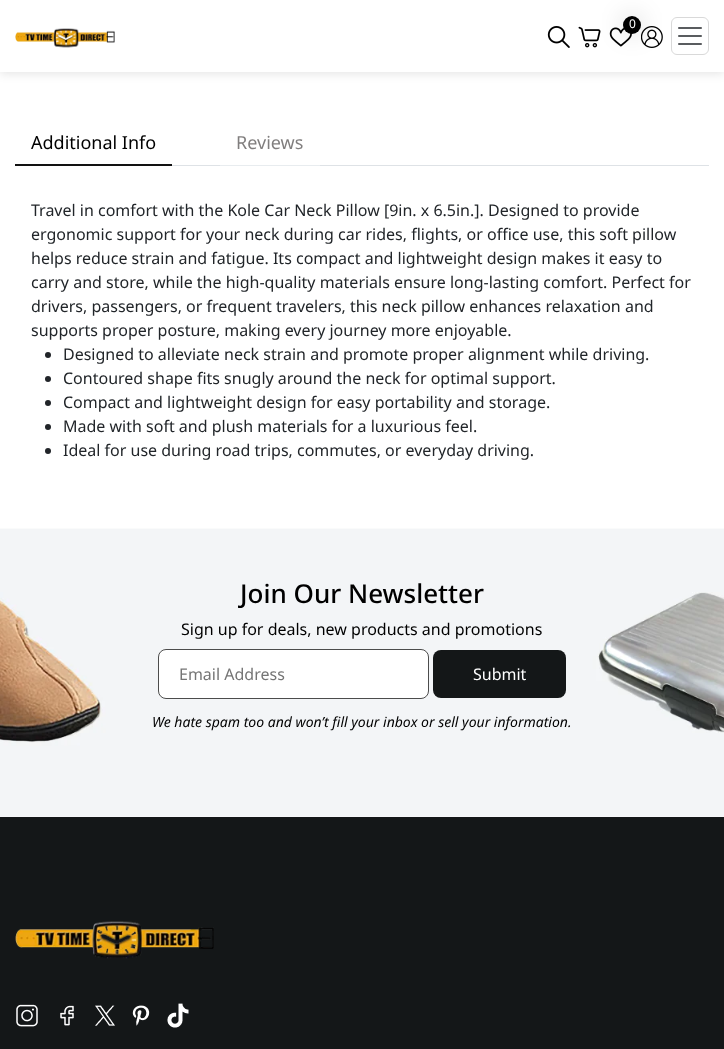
(async () => {
    const canvas = document.querySelector("canvas");
    canvas.width = 724;
    canvas.height = 1049;
    const context = canvas.getContext("2d");
    context.miterLimit = 4;
    context.fontKerning = "normal";
    function write(s, x, y, font, color) {
        context.font = font;
        context.fillStyle = color;
        context.fillText(s, x, y);
    }
    function block(x, y, w, h, color) {
        context.fillStyle = color;
        context.fillRect(x, y, w, h);
    }
    function card(x, y, w, h, r, color) {
        context.fillStyle = color;
        context.beginPath();
        context.roundRect(x, y, w, h, r);
        context.fill();
    }
    async function photo(src, x, y, w, h) {
        const img = new Image();
        img.src = src;
        await img.decode();
        context.drawImage(img, x, y, w, h);
    }

    block(0, 0, 724, 1049, "rgb(255, 255, 255)");
    context.fillStyle = "rgba(0, 0, 0, 0.1)";
    context.filter = "blur(5px)";
    context.beginPath();
    context.rect(0, 2, 724, 72);
    context.fill();
    context.filter = "none";
    block(0, 0, 724, 72, "rgb(255, 255, 255)");
    await photo("media/1.png", 609, 27, 23, 20);
    context.beginPath();
    context.roundRect(671.5, 17.5, 37, 37, 5.5);
    context.strokeStyle = "rgb(217, 217, 217)";
    context.stroke();
    await photo("media/2.png", 678, 27, 24, 18);
    await photo("media/4.png", 578, 26, 23, 22);
    await photo("media/5.png", 641, 26, 22, 22);
    context.fillStyle = "rgba(0, 0, 0, 0.2)";
    context.filter = "blur(12.5px)";
    context.beginPath();
    context.roundRect(623, 16, 18, 18, 9);
    context.fill();
    context.filter = "none";
    context.fillStyle = "rgb(0, 0, 0)";
    context.beginPath();
    context.arc(632, 25, 9, 0, Math.PI * 2);
    context.fill();
    write("0", 629, 28, "12px Noto Sans", "rgb(255, 255, 255)");
    await photo("media/3.png", 547, 26, 23, 22);
    await photo("media/6.png", 15, 28, 100, 20);
    block(172, 165, 537, 1, "rgb(222, 226, 230)");
    block(15, 164, 157, 2, "rgb(18, 18, 18)");
    write("Additional Info", 31, 149, "18px Noto Sans", "rgb(0, 0, 0)");
    block(220, 165, 100, 1, "rgb(232, 236, 239)");
    write("Reviews", 236, 149, "18px Noto Sans", "rgb(128, 126, 126)");
    write("Travel in comfort with the Kole Car Neck Pillow [9in. x 6.5in.]. Designed to provide", 31, 216, "16px Noto Sans", "rgb(33, 37, 41)");
    write("ergonomic support for your neck during car rides, flights, or office use, this soft pillow", 31, 240, "16px Noto Sans", "rgb(33, 37, 41)");
    write("helps reduce strain and fatigue. Its compact and lightweight design makes it easy to", 31, 264, "16px Noto Sans", "rgb(33, 37, 41)");
    write("carry and store, while the high-quality materials ensure long-lasting comfort. Perfect for", 31, 288, "16px Noto Sans", "rgb(33, 37, 41)");
    write("drivers, passengers, or frequent travelers, this neck pillow enhances relaxation and", 31, 312, "16px Noto Sans", "rgb(33, 37, 41)");
    write("supports proper posture, making every journey more enjoyable.", 31, 336, "16px Noto Sans", "rgb(33, 37, 41)");
    context.beginPath();
    context.arc(48, 355, 3, 0, Math.PI * 2);
    context.fill();
    write("Designed to alleviate neck strain and promote proper alignment while driving.", 63, 360, "16px Noto Sans", "rgb(33, 37, 41)");
    context.beginPath();
    context.arc(48, 379, 3, 0, Math.PI * 2);
    context.fill();
    write("Contoured shape fits snugly around the neck for optimal support.", 63, 384, "16px Noto Sans", "rgb(33, 37, 41)");
    context.beginPath();
    context.arc(48, 403, 3, 0, Math.PI * 2);
    context.fill();
    write("Compact and lightweight design for easy portability and storage.", 63, 408, "16px Noto Sans", "rgb(33, 37, 41)");
    context.beginPath();
    context.arc(48, 427, 3, 0, Math.PI * 2);
    context.fill();
    write("Made with soft and plush materials for a luxurious feel.", 63, 432, "16px Noto Sans", "rgb(33, 37, 41)");
    context.beginPath();
    context.arc(48, 451, 3, 0, Math.PI * 2);
    context.fill();
    write("Ideal for use during road trips, commutes, or everyday driving.", 63, 456, "16px Noto Sans", "rgb(33, 37, 41)");
    await photo("media/7.png", 0, 528, 724, 289);
    write("Join Our Newsletter", 240, 603, "500 26px Noto Sans", "rgb(0, 0, 0)");
    write("Sign up for deals, new products and promotions", 181, 635, "16px Noto Sans", "rgb(0, 0, 0)");
    card(158, 649, 271, 50, 8, "rgb(255, 255, 255)");
    context.beginPath();
    context.roundRect(158.5, 649.5, 270, 49, 7.5);
    context.strokeStyle = "rgba(0, 0, 0, 0.7)";
    context.stroke();
    write("Email Address", 179, 680, "16px Noto Sans", "rgb(117, 117, 117)");
    card(433, 650, 133, 48, 8, "rgb(20, 23, 24)");
    write("Submit", 473, 680, "16px Noto Sans", "rgb(255, 255, 255)");
    write("We hate spam too and won’t fill your inbox or sell your information.", 152, 727, "italic 14px Noto Sans", "rgb(0, 0, 0)");
    block(0, 817, 724, 232, "rgb(20, 23, 24)");
    await photo("media/8.png", 15, 921, 199, 38);
    await photo("media/9.png", 16, 1004, 22, 23);
    await photo("media/10.png", 60, 1005, 14, 21);
    await photo("media/11.png", 95, 1005, 20, 21);
    await photo("media/12.png", 132, 1005, 18, 21);
    await photo("media/13.png", 167, 1003, 22, 25);
})();
